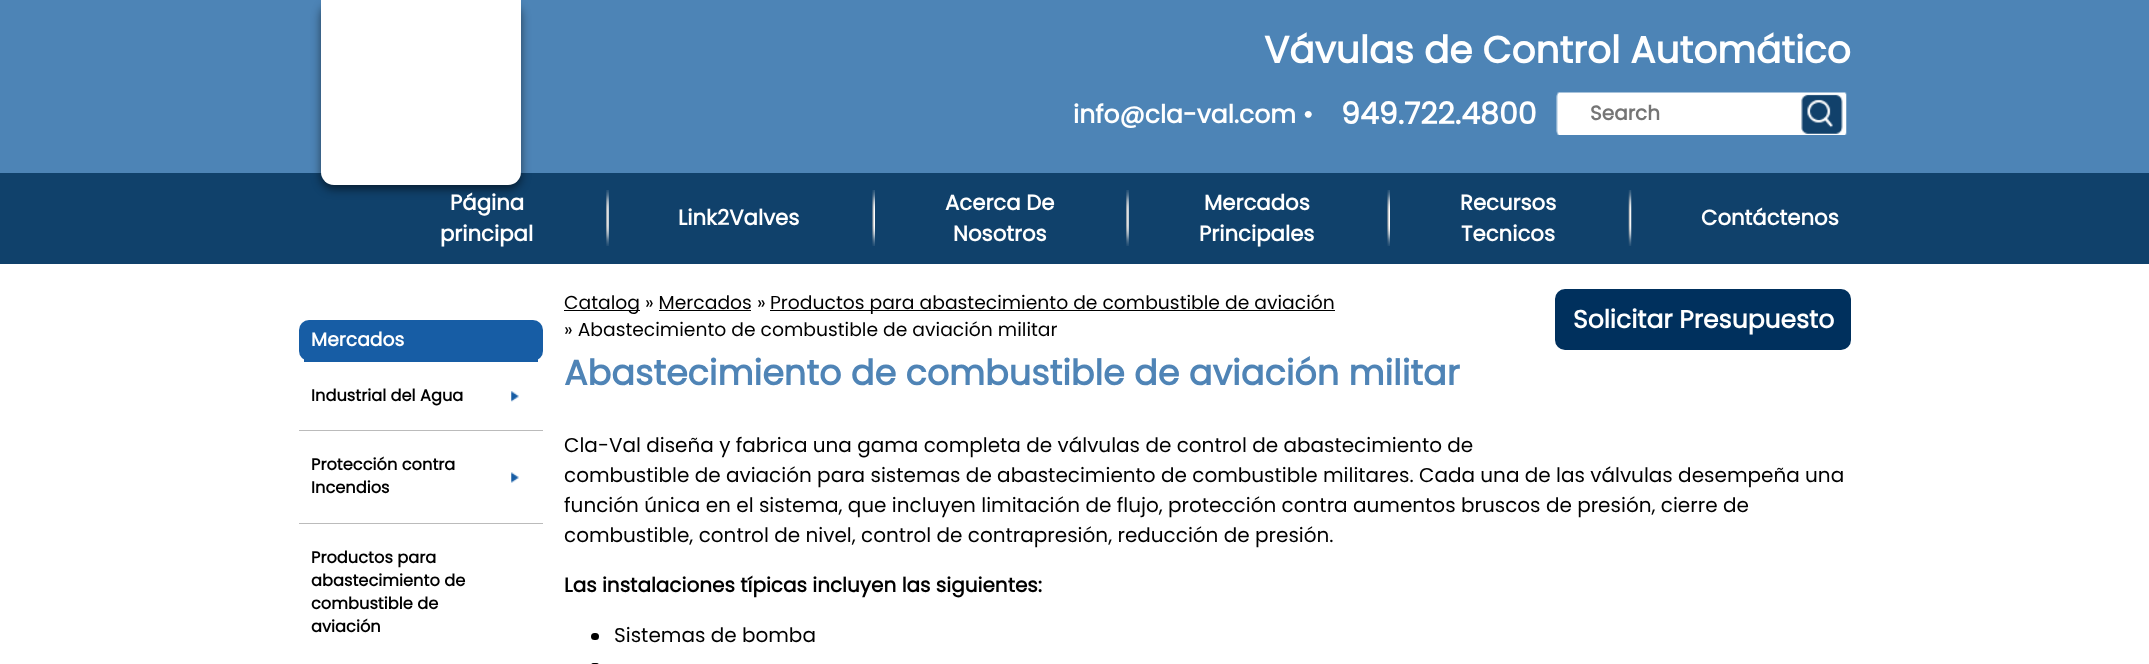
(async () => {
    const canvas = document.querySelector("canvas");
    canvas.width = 2149;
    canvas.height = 664;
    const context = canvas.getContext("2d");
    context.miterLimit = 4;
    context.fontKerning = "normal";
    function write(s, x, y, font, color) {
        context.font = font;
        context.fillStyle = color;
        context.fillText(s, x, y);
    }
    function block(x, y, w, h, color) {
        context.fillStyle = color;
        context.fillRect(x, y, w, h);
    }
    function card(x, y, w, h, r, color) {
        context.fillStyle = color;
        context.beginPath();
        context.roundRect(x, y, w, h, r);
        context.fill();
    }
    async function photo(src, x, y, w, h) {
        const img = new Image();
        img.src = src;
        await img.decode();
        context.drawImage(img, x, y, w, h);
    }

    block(0, 0, 2149, 664, "rgb(255, 255, 255)");
    block(0, 0, 2149, 173, "rgb(77, 132, 182)");
    block(0, 173, 2149, 91, "rgb(16, 65, 107)");
    context.fillStyle = "rgba(0, 0, 0, 0.54)";
    context.filter = "blur(5px)";
    context.beginPath();
    context.roundRect(321, 4, 200, 185, 13);
    context.fill();
    context.filter = "none";
    context.fillStyle = "rgb(255, 255, 255)";
    context.beginPath();
    context.roundRect(321, 0, 200, 185, [0, 0, 13, 13]);
    context.fill();
    write("Vávulas de Control Automático", 1264, 63, "bold 37.5px Poppins", "rgb(255, 255, 255)");
    write("info@cla-val.com •", 1073, 123, "bold 25px Poppins", "rgb(255, 255, 255)");
    write("949.722.4800", 1341, 124, "bold 30px Poppins", "rgb(255, 255, 255)");
    await photo("media/1.png", 1556, 92, 291, 43);
    write("Search", 1590, 120, "bold 20px Poppins", "rgb(117, 117, 117)");
    write("Página", 450, 210, "bold 21.25px Poppins", "rgb(255, 255, 255)");
    write("principal", 440, 241, "bold 21.25px Poppins", "rgb(255, 255, 255)");
    await photo("media/2.png", 606, 190, 3, 56);
    write("Link2Valves", 678, 225, "bold 21.25px Poppins", "rgb(255, 255, 255)");
    await photo("media/3.png", 872, 190, 3, 56);
    write("Acerca De", 945, 210, "bold 21.25px Poppins", "rgb(255, 255, 255)");
    write("Nosotros", 953, 241, "bold 21.25px Poppins", "rgb(255, 255, 255)");
    await photo("media/2.png", 1126, 190, 3, 56);
    write("Mercados", 1204, 210, "bold 21.25px Poppins", "rgb(255, 255, 255)");
    write("Principales", 1199, 241, "bold 21.25px Poppins", "rgb(255, 255, 255)");
    await photo("media/3.png", 1387, 190, 3, 56);
    write("Recursos", 1460, 210, "bold 21.25px Poppins", "rgb(255, 255, 255)");
    write("Tecnicos", 1461, 241, "bold 21.25px Poppins", "rgb(255, 255, 255)");
    await photo("media/4.png", 1628, 190, 4, 56);
    write("Contáctenos", 1701, 225, "bold 21.25px Poppins", "rgb(255, 255, 255)");
    card(299, 320, 244, 41, 10, "rgb(23, 93, 165)");
    block(304, 359, 234, 3, "rgb(23, 93, 165)");
    write("Mercados", 311, 346, "bold 18.75px Poppins", "rgb(255, 255, 255)");
    await photo("media/5.png", 511, 391, 8, 11);
    block(299, 430, 244, 1, "rgb(187, 187, 187)");
    write("Industrial del Agua", 311, 401, "bold 16.25px Poppins", "rgb(0, 0, 0)");
    await photo("media/6.png", 511, 472, 8, 11);
    block(299, 523, 244, 1, "rgb(187, 187, 187)");
    write("Protección contra", 311, 470, "bold 16.25px Poppins", "rgb(0, 0, 0)");
    write("Incendios", 311, 493, "bold 16.25px Poppins", "rgb(0, 0, 0)");
    write("Productos para", 311, 563, "bold 16.25px Poppins", "rgb(0, 0, 0)");
    write("abastecimiento de", 311, 586, "bold 16.25px Poppins", "rgb(0, 0, 0)");
    write("combustible de", 311, 609, "bold 16.25px Poppins", "rgb(0, 0, 0)");
    write("aviación", 311, 632, "bold 16.25px Poppins", "rgb(0, 0, 0)");
    block(564, 310, 76, 1, "rgb(0, 0, 0)");
    write("Catalog » Mercados »", 564, 309, "18.75px Poppins", "rgb(0, 0, 0)");
    block(770, 310, 565, 1, "rgb(0, 0, 0)");
    write("Productos para abastecimiento de combustible de aviación", 770, 309, "18.75px Poppins", "rgb(0, 0, 0)");
    block(659, 310, 92, 1, "rgb(0, 0, 0)");
    write("» Abastecimiento de combustible de aviación militar", 564, 336, "18.75px Poppins", "rgb(0, 0, 0)");
    context.fillStyle = "rgb(0, 48, 93)";
    context.beginPath();
    context.roundRect(1556.5, 290.5, 293, 58, 8.5);
    context.fill();
    context.strokeStyle = "rgb(0, 48, 93)";
    context.lineWidth = 3;
    context.stroke();
    write("Solicitar Presupuesto", 1573, 328, "bold 25px Poppins", "rgb(255, 255, 255)");
    write("Abastecimiento de combustible de aviación militar", 564, 385, "bold 35px Poppins", "rgb(79, 132, 182)");
    write("Cla-Val diseña y fabrica una gama completa de válvulas de control de abastecimiento de", 564, 452, "20px Poppins", "rgb(0, 0, 0)");
    write("combustible de aviación para sistemas de abastecimiento de combustible militares. Cada una de las válvulas desempeña una", 564, 482, "20px Poppins", "rgb(0, 0, 0)");
    write("función única en el sistema, que incluyen limitación de flujo, protección contra aumentos bruscos de presión, cierre de", 564, 512, "20px Poppins", "rgb(0, 0, 0)");
    write("combustible, control de nivel, control de contrapresión, reducción de presión.", 564, 542, "20px Poppins", "rgb(0, 0, 0)");
    write("Las instalaciones típicas incluyen las siguientes:", 564, 592, "bold 20px Poppins", "rgb(0, 0, 0)");
    card(591, 633, 8, 7, 3.5, "rgb(0, 0, 0)");
    write("Sistemas de bomba", 614, 642, "20px Poppins", "rgb(0, 0, 0)");
    card(591, 663, 8, 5, 3.5, "rgb(0, 0, 0)");
})();
